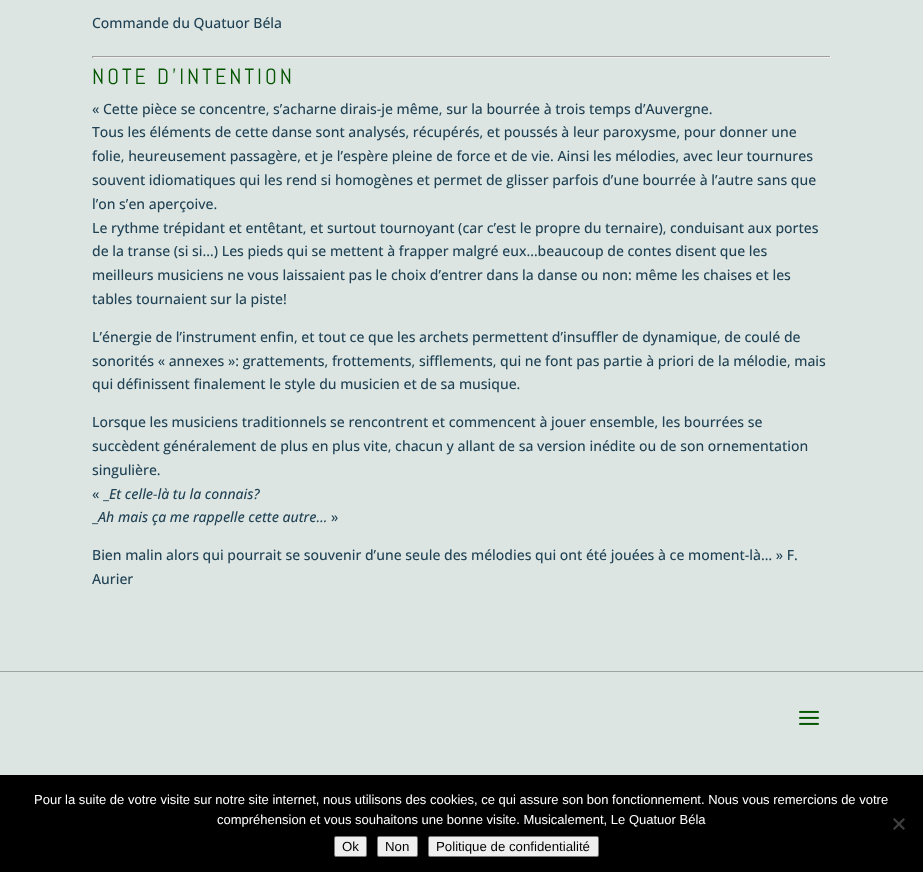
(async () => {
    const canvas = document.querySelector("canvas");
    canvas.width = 923;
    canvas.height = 872;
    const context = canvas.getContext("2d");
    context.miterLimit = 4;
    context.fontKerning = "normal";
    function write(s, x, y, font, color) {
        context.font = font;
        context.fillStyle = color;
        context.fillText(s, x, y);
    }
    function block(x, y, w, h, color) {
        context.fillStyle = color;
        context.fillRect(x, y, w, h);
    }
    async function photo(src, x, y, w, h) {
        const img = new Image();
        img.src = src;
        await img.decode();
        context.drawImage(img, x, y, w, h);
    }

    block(0, 0, 923, 872, "rgb(220, 229, 226)");
    write("Commande du Quatuor Béla", 92, 28, "500 14px Open Sans", "rgb(32, 66, 84)");
    block(92, 56, 739, 1, "rgb(159, 159, 159)");
    block(830, 56, 1, 2, "rgb(238, 238, 238)");
    block(92, 57, 739, 1, "rgb(238, 238, 238)");
    block(92, 56, 1, 2, "rgb(159, 159, 159)");
    context.letterSpacing = "3px";
    write("NOTE D’INTENTION", 92, 84, "22px Abel", "rgb(4, 86, 0)");
    context.letterSpacing = "0px";
    write("« Cette pièce se concentre, s’acharne dirais-je même, sur la bourrée à trois temps d’Auvergne.", 92, 114, "500 14px Open Sans", "rgb(32, 66, 84)");
    write("Tous les éléments de cette danse sont analysés, récupérés, et poussés à leur paroxysme, pour donner une", 92, 137, "500 14px Open Sans", "rgb(32, 66, 84)");
    write("folie, heureusement passagère, et je l’espère pleine de force et de vie. Ainsi les mélodies, avec leur tournures", 92, 161, "500 14px Open Sans", "rgb(32, 66, 84)");
    write("souvent idiomatiques qui les rend si homogènes et permet de glisser parfois d’une bourrée à l’autre sans que", 92, 185, "500 14px Open Sans", "rgb(32, 66, 84)");
    write("l’on s’en aperçoive.", 92, 209, "500 14px Open Sans", "rgb(32, 66, 84)");
    write("Le rythme trépidant et entêtant, et surtout tournoyant (car c’est le propre du ternaire), conduisant aux portes", 92, 233, "500 14px Open Sans", "rgb(32, 66, 84)");
    write("de la transe (si si…) Les pieds qui se mettent à frapper malgré eux…beaucoup de contes disent que les", 92, 256, "500 14px Open Sans", "rgb(32, 66, 84)");
    write("meilleurs musiciens ne vous laissaient pas le choix d’entrer dans la danse ou non: même les chaises et les", 92, 280, "500 14px Open Sans", "rgb(32, 66, 84)");
    write("tables tournaient sur la piste!", 92, 304, "500 14px Open Sans", "rgb(32, 66, 84)");
    write("L’énergie de l’instrument enfin, et tout ce que les archets permettent d’insuffler de dynamique, de coulé de", 92, 342, "500 14px Open Sans", "rgb(32, 66, 84)");
    write("sonorités « annexes »: grattements, frottements, sifflements, qui ne font pas partie à priori de la mélodie, mais", 92, 366, "500 14px Open Sans", "rgb(32, 66, 84)");
    write("qui définissent finalement le style du musicien et de sa musique.", 92, 389, "500 14px Open Sans", "rgb(32, 66, 84)");
    write("Lorsque les musiciens traditionnels se rencontrent et commencent à jouer ensemble, les bourrées se", 92, 427, "500 14px Open Sans", "rgb(32, 66, 84)");
    write("succèdent généralement de plus en plus vite, chacun y allant de sa version inédite ou de son ornementation", 92, 451, "500 14px Open Sans", "rgb(32, 66, 84)");
    write("singulière.", 92, 475, "500 14px Open Sans", "rgb(32, 66, 84)");
    write("« _", 92, 499, "500 14px Open Sans", "rgb(32, 66, 84)");
    write("Et celle-là tu la connais?", 109, 499, "italic 500 14px Open Sans", "rgb(32, 66, 84)");
    write("_", 92, 522, "500 14px Open Sans", "rgb(32, 66, 84)");
    write("Ah mais ça me rappelle cette autre…", 98, 522, "italic 500 14px Open Sans", "rgb(32, 66, 84)");
    write("»", 331, 522, "500 14px Open Sans", "rgb(32, 66, 84)");
    write("Bien malin alors qui pourrait se souvenir d’une seule des mélodies qui ont été jouées à ce moment-là… » F.", 92, 560, "500 14px Open Sans", "rgb(32, 66, 84)");
    write("Aurier", 92, 584, "500 14px Open Sans", "rgb(32, 66, 84)");
    block(0, 671, 923, 1, "rgb(159, 164, 165)");
    await photo("media/1.png", 799, 710, 20, 15);
    block(0, 775, 923, 97, "rgb(0, 0, 0)");
    write("Pour la suite de votre visite sur notre site internet, nous utilisons des cookies, ce qui assure son bon fonctionnement. Nous vous remercions de votre", 34, 804, "13px Liberation Sans", "rgb(255, 255, 255)");
    write("compréhension et vous souhaitons une bonne visite. Musicalement, Le Quatuor Béla", 217, 824, "13px Liberation Sans", "rgb(255, 255, 255)");
    context.fillStyle = "rgb(64, 64, 64)";
    context.beginPath();
    context.moveTo(903.5, 818);
    context.lineTo(905, 819.5);
    context.lineTo(894.5, 830);
    context.lineTo(893, 828.5);
    context.closePath();
    context.fill();
    context.beginPath();
    context.moveTo(893, 819.5);
    context.lineTo(894.5, 818);
    context.lineTo(905, 828.5);
    context.lineTo(903.5, 830);
    context.closePath();
    context.fill();
    context.fillStyle = "rgb(239, 239, 239)";
    context.beginPath();
    context.roundRect(334.5, 836.5, 32, 20, 1.5);
    context.fill();
    context.strokeStyle = "rgb(118, 118, 118)";
    context.stroke();
    write("Ok", 342, 851, "13.25px Liberation Sans", "rgb(0, 0, 0)");
    context.fillStyle = "rgb(239, 239, 239)";
    context.beginPath();
    context.roundRect(377.5, 836.5, 40, 20, 1.5);
    context.fill();
    context.stroke();
    write("Non", 385, 851, "13.25px Liberation Sans", "rgb(0, 0, 0)");
    context.fillStyle = "rgb(239, 239, 239)";
    context.beginPath();
    context.roundRect(428.5, 836.5, 170, 20, 1.5);
    context.fill();
    context.stroke();
    write("Politique de confidentialité", 436, 851, "13.25px Liberation Sans", "rgb(0, 0, 0)");
})();
